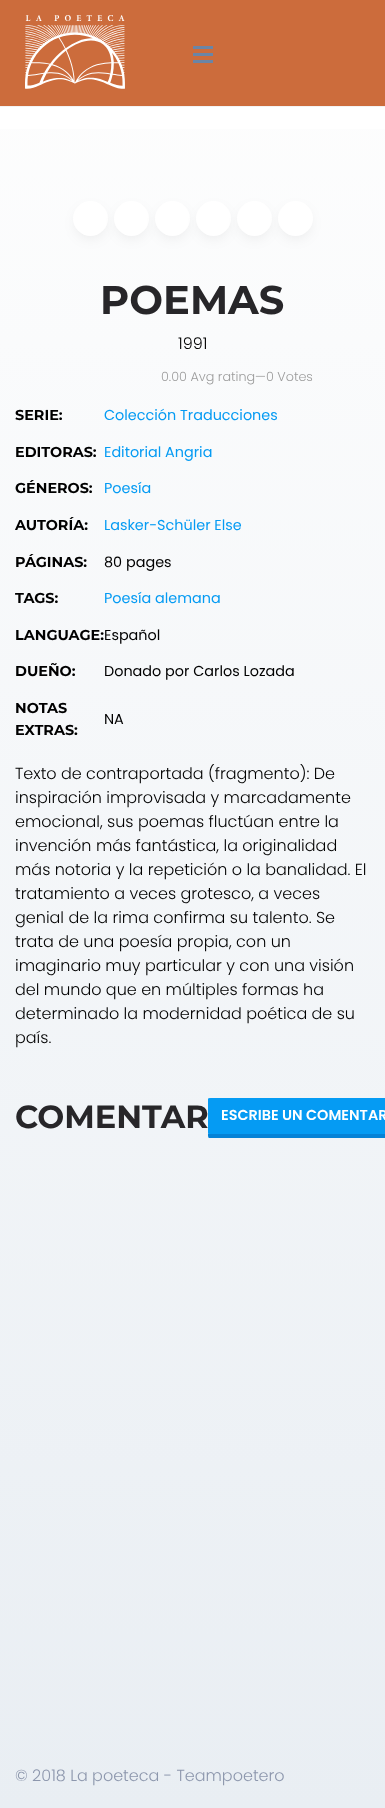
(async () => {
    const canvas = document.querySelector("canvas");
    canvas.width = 385;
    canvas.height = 1808;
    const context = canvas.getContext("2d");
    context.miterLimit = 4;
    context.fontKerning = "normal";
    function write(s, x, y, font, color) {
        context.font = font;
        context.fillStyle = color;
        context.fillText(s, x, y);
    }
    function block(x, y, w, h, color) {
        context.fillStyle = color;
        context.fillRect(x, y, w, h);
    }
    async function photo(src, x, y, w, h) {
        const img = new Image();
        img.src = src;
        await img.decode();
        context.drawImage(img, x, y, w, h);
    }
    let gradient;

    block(0, 0, 385, 1808, "rgb(255, 255, 255)");
    gradient = context.createLinearGradient(192, 0, 193, 1808);
    gradient.addColorStop(0, "rgb(254, 254, 254)");
    gradient.addColorStop(1, "rgb(233, 238, 243)");
    context.fillStyle = gradient;
    context.fillRect(0, 129, 385, 1679);
    block(0, 0, 385, 106, "rgb(204, 108, 60)");
    block(0, 106, 385, 1, "rgb(243, 243, 243)");
    await photo("media/1.png", 25, 15, 100, 74);
    block(193, 53, 20, 3, "rgb(106, 133, 166)");
    block(193, 46, 20, 3, "rgb(106, 133, 166)");
    block(193, 60, 20, 3, "rgb(106, 133, 166)");
    context.fillStyle = "rgba(3, 3, 3, 0.1)";
    context.filter = "blur(7.5px)";
    context.beginPath();
    context.roundRect(78, 211, 25, 25, 12.5);
    context.fill();
    context.filter = "none";
    context.fillStyle = "rgb(255, 255, 255)";
    context.beginPath();
    context.arc(90.5, 218.5, 17.5, 0, Math.PI * 2);
    context.fill();
    context.fillStyle = "rgba(0, 0, 0, 0.1)";
    context.filter = "blur(7.5px)";
    context.beginPath();
    context.roundRect(119, 211, 25, 25, 12.5);
    context.fill();
    context.filter = "none";
    context.fillStyle = "rgb(255, 255, 255)";
    context.beginPath();
    context.arc(131.5, 218.5, 17.5, 0, Math.PI * 2);
    context.fill();
    context.fillStyle = "rgba(0, 0, 0, 0.1)";
    context.filter = "blur(7.5px)";
    context.beginPath();
    context.roundRect(160, 211, 25, 25, 12.5);
    context.fill();
    context.filter = "none";
    context.fillStyle = "rgb(255, 255, 255)";
    context.beginPath();
    context.arc(172.5, 218.5, 17.5, 0, Math.PI * 2);
    context.fill();
    context.fillStyle = "rgba(0, 0, 0, 0.1)";
    context.filter = "blur(7.5px)";
    context.beginPath();
    context.roundRect(201, 211, 25, 25, 12.5);
    context.fill();
    context.filter = "none";
    context.fillStyle = "rgb(255, 255, 255)";
    context.beginPath();
    context.arc(213.5, 218.5, 17.5, 0, Math.PI * 2);
    context.fill();
    context.fillStyle = "rgba(0, 0, 0, 0.1)";
    context.filter = "blur(7.5px)";
    context.beginPath();
    context.roundRect(242, 211, 25, 25, 12.5);
    context.fill();
    context.filter = "none";
    context.fillStyle = "rgb(255, 255, 255)";
    context.beginPath();
    context.arc(254.5, 218.5, 17.5, 0, Math.PI * 2);
    context.fill();
    context.fillStyle = "rgba(0, 0, 0, 0.1)";
    context.filter = "blur(7.5px)";
    context.beginPath();
    context.roundRect(283, 211, 25, 25, 12.5);
    context.fill();
    context.filter = "none";
    context.fillStyle = "rgb(255, 255, 255)";
    context.beginPath();
    context.arc(295.5, 218.5, 17.5, 0, Math.PI * 2);
    context.fill();
    write("POEMAS", 100, 314, "bold 40px Montserrat", "rgb(39, 38, 41)");
    write("1991", 178, 349, "300 16px Poppins", "rgb(0, 0, 0)");
    write("0.00 Avg rating—0 Votes", 161, 381, "300 12.75px Poppins", "rgb(156, 156, 156)");
    write("SERIE:", 15, 420, "bold 14.4px Montserrat", "rgb(0, 0, 0)");
    write("Colección Traducciones", 104, 420, "14.4px Poppins", "rgb(5, 155, 243)");
    write("EDITORAS:", 15, 457, "bold 14.4px Montserrat", "rgb(0, 0, 0)");
    write("Editorial Angria", 104, 457, "14.4px Poppins", "rgb(5, 155, 243)");
    write("GÉNEROS:", 15, 493, "bold 14.4px Montserrat", "rgb(0, 0, 0)");
    write("Poesía", 104, 493, "14.4px Poppins", "rgb(5, 155, 243)");
    write("AUTORÍA:", 15, 530, "bold 14.4px Montserrat", "rgb(0, 0, 0)");
    write("Lasker-Schüler Else", 104, 530, "14.4px Poppins", "rgb(5, 155, 243)");
    write("PÁGINAS:", 15, 567, "bold 14.4px Montserrat", "rgb(0, 0, 0)");
    write("80 pages", 104, 567, "14.4px Poppins", "rgb(0, 0, 0)");
    write("TAGS:", 15, 603, "bold 14.4px Montserrat", "rgb(0, 0, 0)");
    write("Poesía alemana", 104, 603, "14.4px Poppins", "rgb(5, 155, 243)");
    write("LANGUAGE:", 15, 640, "bold 14.4px Montserrat", "rgb(0, 0, 0)");
    write("Español", 104, 640, "14.4px Poppins", "rgb(0, 0, 0)");
    write("DUEÑO:", 15, 676, "bold 14.4px Montserrat", "rgb(0, 0, 0)");
    write("Donado por Carlos Lozada", 104, 676, "14.4px Poppins", "rgb(0, 0, 0)");
    write("NOTAS", 15, 713, "bold 14.4px Montserrat", "rgb(0, 0, 0)");
    write("EXTRAS:", 15, 735, "bold 14.4px Montserrat", "rgb(0, 0, 0)");
    write("NA", 104, 724, "14.4px Poppins", "rgb(0, 0, 0)");
    write("Texto de contraportada (fragmento): De", 15, 779, "300 16px Poppins", "rgb(0, 0, 0)");
    write("inspiración improvisada y marcadamente", 15, 803, "300 16px Poppins", "rgb(0, 0, 0)");
    write("emocional, sus poemas fluctúan entre la", 15, 827, "300 16px Poppins", "rgb(0, 0, 0)");
    write("invención más fantástica, la originalidad", 15, 851, "300 16px Poppins", "rgb(0, 0, 0)");
    write("más notoria y la repetición o la banalidad. El", 15, 875, "300 16px Poppins", "rgb(0, 0, 0)");
    write("tratamiento a veces grotesco, a veces", 15, 899, "300 16px Poppins", "rgb(0, 0, 0)");
    write("genial de la rima confirma su talento. Se", 15, 923, "300 16px Poppins", "rgb(0, 0, 0)");
    write("trata de una poesía propia, con un", 15, 947, "300 16px Poppins", "rgb(0, 0, 0)");
    write("imaginario muy particular y con una visión", 15, 971, "300 16px Poppins", "rgb(0, 0, 0)");
    write("del mundo que en múltiples formas ha", 15, 995, "300 16px Poppins", "rgb(0, 0, 0)");
    write("determinado la modernidad poética de su", 15, 1019, "300 16px Poppins", "rgb(0, 0, 0)");
    write("país.", 15, 1043, "300 16px Poppins", "rgb(0, 0, 0)");
    write("COMENTAR", 15, 1128, "bold 32px Montserrat", "rgb(39, 38, 41)");
    context.fillStyle = "rgb(5, 130, 214)";
    context.beginPath();
    context.moveTo(208, 1133);
    context.bezierCurveTo(208, 1139, 208, 1138, 214, 1138);
    context.lineTo(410, 1138);
    context.bezierCurveTo(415, 1138, 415, 1138, 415, 1133);
    context.bezierCurveTo(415, 1134, 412, 1134, 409, 1134);
    context.lineTo(214, 1134);
    context.bezierCurveTo(211, 1134, 208, 1134, 208, 1133);
    context.closePath();
    context.fill();
    context.fillStyle = "rgb(5, 155, 243)";
    context.beginPath();
    context.moveTo(214, 1098);
    context.lineTo(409, 1098);
    context.bezierCurveTo(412, 1098, 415, 1098, 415, 1099);
    context.lineTo(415, 1133);
    context.bezierCurveTo(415, 1134, 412, 1134, 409, 1134);
    context.lineTo(214, 1134);
    context.bezierCurveTo(211, 1134, 208, 1134, 208, 1133);
    context.lineTo(208, 1099);
    context.bezierCurveTo(208, 1098, 211, 1098, 214, 1098);
    context.closePath();
    context.fill();
    context.beginPath();
    context.moveTo(214, 1098.5);
    context.lineTo(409, 1098.5);
    context.lineTo(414.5, 1099);
    context.lineTo(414.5, 1133);
    context.lineTo(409, 1133.5);
    context.lineTo(214, 1133.5);
    context.lineTo(208.5, 1133);
    context.lineTo(208.5, 1099);
    context.closePath();
    context.strokeStyle = "rgb(5, 155, 243)";
    context.stroke();
    write("ESCRIBE UN COMENTAR", 221, 1120, "600 14.4px Poppins", "rgb(255, 255, 255)");
    write("© 2018 La poeteca - Teampoetero", 15, 1781, "300 16px Poppins", "rgb(141, 151, 173)");
})();
